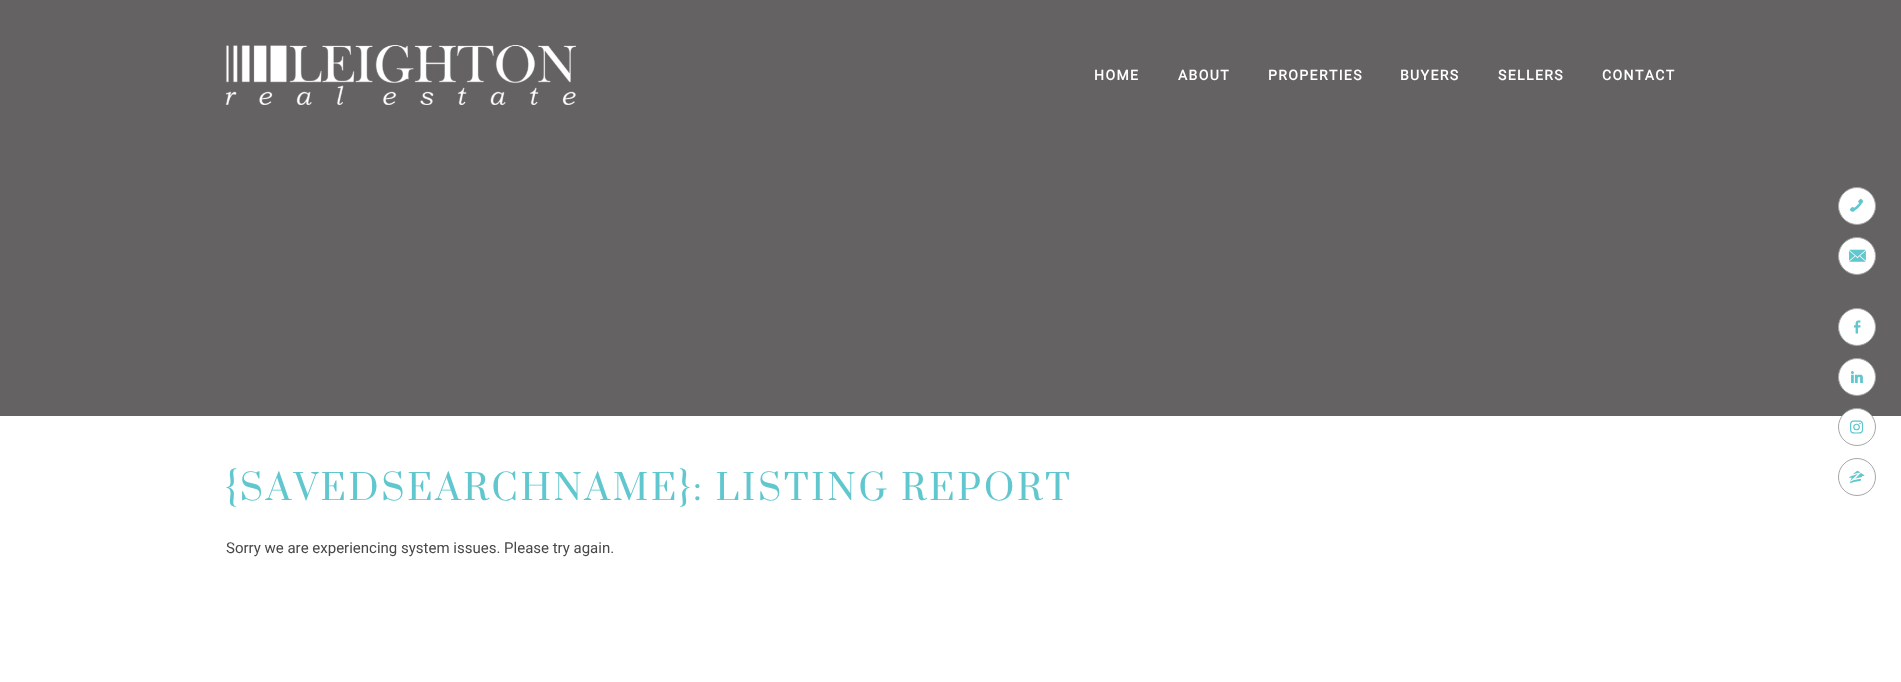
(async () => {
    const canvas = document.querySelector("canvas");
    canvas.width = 1901;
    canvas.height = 682;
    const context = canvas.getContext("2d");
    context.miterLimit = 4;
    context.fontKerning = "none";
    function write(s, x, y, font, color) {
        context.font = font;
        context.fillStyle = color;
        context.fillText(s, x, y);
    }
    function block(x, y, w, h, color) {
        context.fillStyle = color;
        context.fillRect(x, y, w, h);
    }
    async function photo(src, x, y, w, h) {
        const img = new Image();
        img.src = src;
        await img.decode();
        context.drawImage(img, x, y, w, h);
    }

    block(0, 0, 1901, 682, "rgb(255, 255, 255)");
    block(0, 0, 1901, 416, "rgb(100, 98, 98)");
    await photo("media/1.png", 225, 45, 351, 60);
    context.letterSpacing = "1.4px";
    write("HOME", 1094, 80, "bold 14px Roboto", "rgb(255, 255, 255)");
    write("ABOUT", 1178, 80, "bold 14px Roboto", "rgb(255, 255, 255)");
    write("PROPERTIES", 1268, 80, "bold 14px Roboto", "rgb(255, 255, 255)");
    write("BUYERS", 1400, 80, "bold 14px Roboto", "rgb(255, 255, 255)");
    write("SELLERS", 1498, 80, "bold 14px Roboto", "rgb(255, 255, 255)");
    write("CONTACT", 1602, 80, "bold 14px Roboto", "rgb(255, 255, 255)");
    context.beginPath();
    context.arc(1857, 206, 18.5, 0, Math.PI * 2);
    context.fill();
    context.strokeStyle = "rgb(166, 166, 166)";
    context.stroke();
    context.letterSpacing = "0px";
    write("򰈄", 1850, 211, "13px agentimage", "rgb(97, 199, 206)");
    context.fillStyle = "rgb(255, 255, 255)";
    context.beginPath();
    context.arc(1857, 256, 18.5, 0, Math.PI * 2);
    context.fill();
    context.stroke();
    write("򰄢", 1849, 261, "12px agentimage", "rgb(97, 199, 206)");
    context.fillStyle = "rgb(255, 255, 255)";
    context.beginPath();
    context.arc(1857, 327, 18.5, 0, Math.PI * 2);
    context.fill();
    context.stroke();
    write("򰄔", 1854, 334, "16px agentimage", "rgb(97, 199, 206)");
    context.fillStyle = "rgb(255, 255, 255)";
    context.beginPath();
    context.arc(1857, 377, 18.5, 0, Math.PI * 2);
    context.fill();
    context.stroke();
    write("򰄅", 1851, 384, "16px agentimage", "rgb(97, 199, 206)");
    context.fillStyle = "rgb(255, 255, 255)";
    context.beginPath();
    context.arc(1857, 427, 18.5, 0, Math.PI * 2);
    context.fill();
    context.stroke();
    write("򰄆", 1850, 434, "16px agentimage", "rgb(97, 199, 206)");
    context.beginPath();
    context.arc(1857, 477, 18.5, 0, Math.PI * 2);
    context.stroke();
    write("򰂕", 1849, 484, "16px agentimage", "rgb(97, 199, 206)");
    context.letterSpacing = "2.8px";
    write("{SAVEDSEARCHNAME}: LISTING REPORT", 226, 500, "35px Prata", "rgb(97, 199, 206)");
    context.letterSpacing = "0px";
    write("Sorry we are experiencing system issues. Please try again.", 226, 553, "15px Roboto", "rgb(72, 72, 72)");
})();
